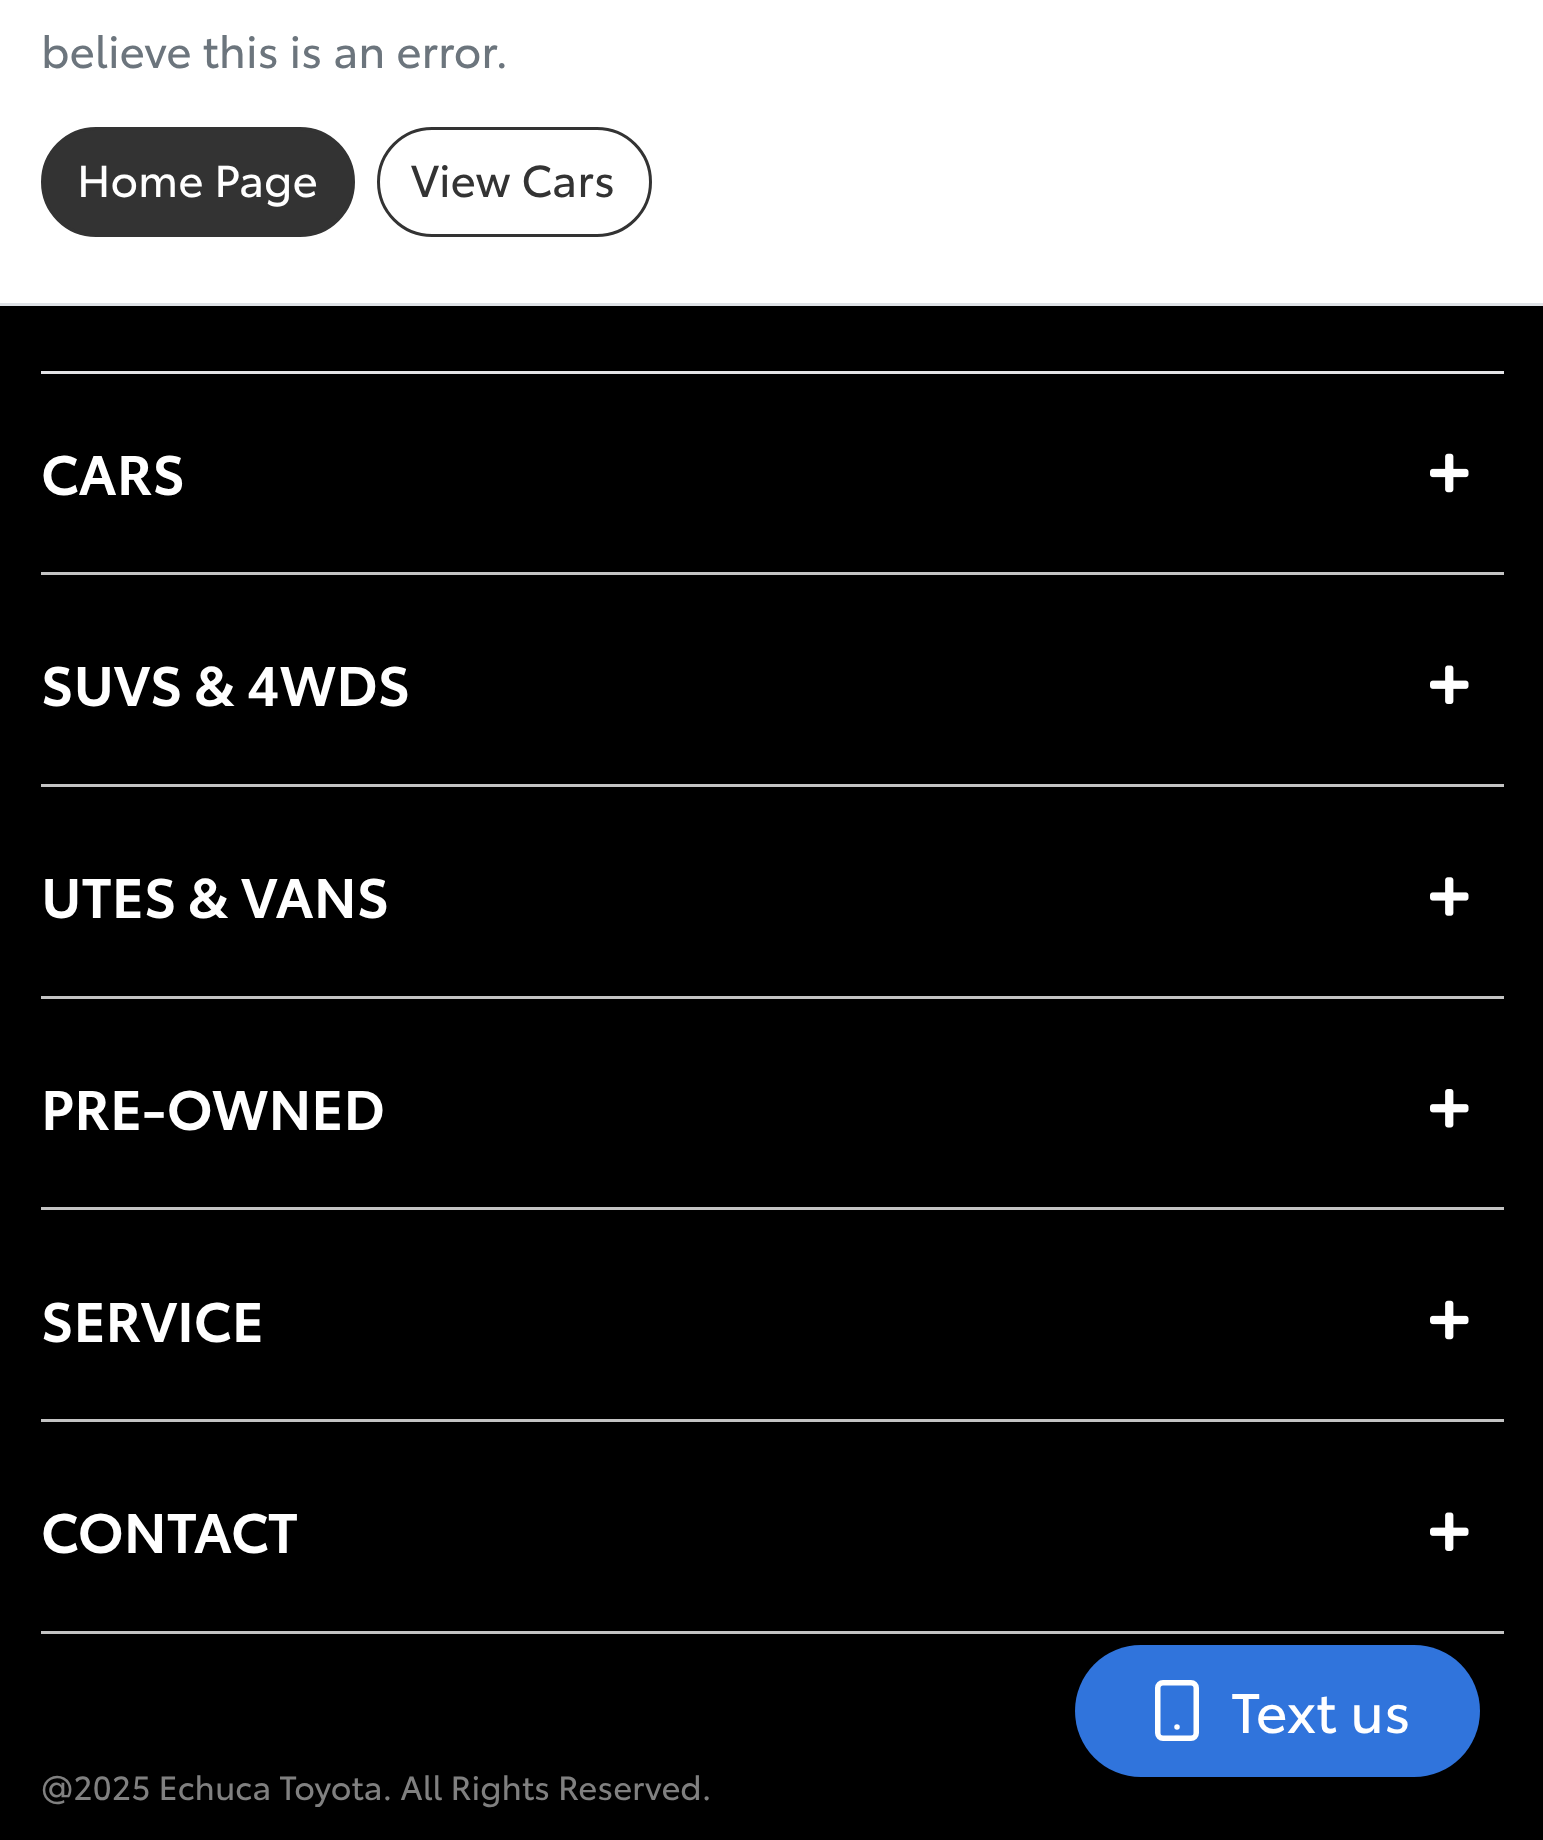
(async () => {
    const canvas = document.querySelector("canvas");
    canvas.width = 1543;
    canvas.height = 1840;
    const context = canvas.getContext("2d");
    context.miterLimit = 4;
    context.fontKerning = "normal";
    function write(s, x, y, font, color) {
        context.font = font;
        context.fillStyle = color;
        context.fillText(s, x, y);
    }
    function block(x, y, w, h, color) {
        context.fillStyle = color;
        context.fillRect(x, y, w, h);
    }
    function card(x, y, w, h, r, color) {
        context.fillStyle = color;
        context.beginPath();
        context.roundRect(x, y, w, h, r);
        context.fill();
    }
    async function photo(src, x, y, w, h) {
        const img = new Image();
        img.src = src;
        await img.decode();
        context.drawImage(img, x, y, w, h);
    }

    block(0, 0, 1543, 1840, "rgb(255, 255, 255)");
    write("believe this is an error.", 41, 68, "44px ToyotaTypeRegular", "rgb(108, 117, 125)");
    context.fillStyle = "rgb(51, 51, 51)";
    context.beginPath();
    context.roundRect(42.5, 128.5, 311, 107, 53.5);
    context.fill();
    context.strokeStyle = "rgb(51, 51, 51)";
    context.lineWidth = 3;
    context.stroke();
    write("Home Page", 77, 197, "44px ToyotaTypeRegular", "rgb(255, 255, 255)");
    context.beginPath();
    context.roundRect(378.5, 128.5, 272, 107, 53.5);
    context.stroke();
    write("View Cars", 411, 197, "44px ToyotaTypeRegular", "rgb(51, 51, 51)");
    block(0, 306, 1543, 1534, "rgb(0, 0, 0)");
    block(0, 303, 1543, 3, "rgb(222, 226, 230)");
    block(41, 371, 1463, 3, "rgb(228, 228, 231)");
    block(41, 572, 1463, 3, "rgb(195, 195, 195)");
    write("CARS", 41, 495, "600 55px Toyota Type", "rgb(255, 255, 255)");
    await photo("media/1.png", 1430, 453, 39, 40);
    block(41, 784, 1463, 3, "rgb(195, 195, 195)");
    write("SUVS & 4WDS", 41, 706, "600 55px Toyota Type", "rgb(255, 255, 255)");
    await photo("media/2.png", 1430, 665, 39, 39);
    block(41, 996, 1463, 3, "rgb(195, 195, 195)");
    write("UTES & VANS", 41, 918, "600 55px Toyota Type", "rgb(255, 255, 255)");
    await photo("media/3.png", 1430, 877, 39, 39);
    block(41, 1207, 1463, 3, "rgb(195, 195, 195)");
    write("PRE-OWNED", 41, 1130, "600 55px Toyota Type", "rgb(255, 255, 255)");
    await photo("media/4.png", 1430, 1089, 39, 39);
    block(41, 1419, 1463, 3, "rgb(195, 195, 195)");
    write("SERVICE", 41, 1342, "600 55px Toyota Type", "rgb(255, 255, 255)");
    await photo("media/1.png", 1430, 1300, 39, 40);
    block(41, 1631, 1463, 3, "rgb(195, 195, 195)");
    write("CONTACT", 41, 1553, "600 55px Toyota Type", "rgb(255, 255, 255)");
    await photo("media/2.png", 1430, 1512, 39, 39);
    write("@2025 Echuca Toyota. All Rights Reserved.", 41, 1800, "33px ToyotaTypeRegular", "rgb(128, 128, 128)");
    card(1075, 1645, 405, 132, 66, "rgb(48, 116, 220)");
    context.beginPath();
    context.roundRect(1157.75, 1682.75, 38.5, 55.5, 5.25);
    context.strokeStyle = "rgb(255, 255, 255)";
    context.lineWidth = 5.5;
    context.stroke();
    context.beginPath();
    context.moveTo(1177, 1727);
    context.lineTo(1177, 1727);
    context.lineCap = "round";
    context.lineJoin = "round";
    context.stroke();
    write("Text us", 1231, 1733, "55px ToyotaTypeRegular", "rgb(255, 255, 255)");
})();
